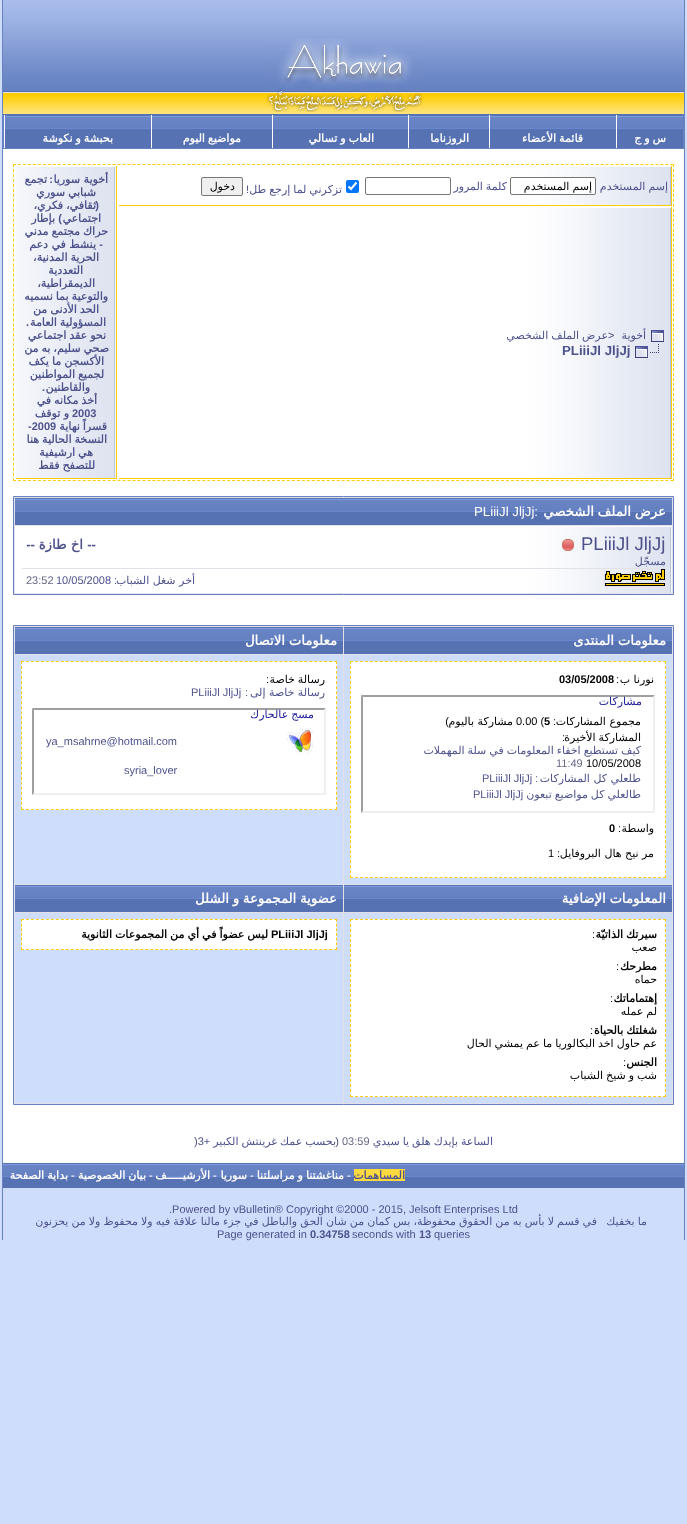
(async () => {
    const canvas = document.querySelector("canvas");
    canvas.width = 687;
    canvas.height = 1524;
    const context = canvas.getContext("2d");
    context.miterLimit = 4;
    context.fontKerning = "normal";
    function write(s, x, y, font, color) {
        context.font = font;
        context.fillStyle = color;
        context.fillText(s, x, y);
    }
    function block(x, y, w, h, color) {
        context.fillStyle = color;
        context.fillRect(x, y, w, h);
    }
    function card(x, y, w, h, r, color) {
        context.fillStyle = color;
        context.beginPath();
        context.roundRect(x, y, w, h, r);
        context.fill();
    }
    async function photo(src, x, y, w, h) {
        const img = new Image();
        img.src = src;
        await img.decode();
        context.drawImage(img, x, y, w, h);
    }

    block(0, 0, 687, 1524, "rgb(207, 221, 253)");
    block(684, 0, 1, 1240, "rgb(103, 131, 195)");
    block(2, 0, 1, 1240, "rgb(103, 131, 195)");
    block(3, 114, 681, 1, "rgb(86, 114, 178)");
    await photo("media/1.png", 3, 0, 681, 114);
    await photo("media/2.png", 266, 38, 157, 74);
    block(683, 115, 1, 34, "rgb(101, 129, 193)");
    block(3, 148, 681, 1, "rgb(101, 129, 193)");
    block(3, 115, 1, 34, "rgb(101, 129, 193)");
    block(617, 115, 66, 33, "rgb(86, 114, 178)");
    await photo("media/3.png", 617, 116, 66, 13);
    context.wordSpacing = "-0.5px";
    context.direction = "rtl";
    write("س و ج", 666, 142, "bold 11px DejaVu Sans", "rgb(255, 255, 255)");
    block(616, 115, 1, 33, "rgb(255, 255, 255)");
    block(490, 115, 126, 33, "rgb(86, 114, 178)");
    await photo("media/4.png", 490, 116, 126, 13);
    write("قائمة الأعضاء", 583, 142, "bold 11px DejaVu Sans", "rgb(255, 255, 255)");
    block(489, 115, 1, 33, "rgb(255, 255, 255)");
    block(409, 115, 80, 33, "rgb(86, 114, 178)");
    await photo("media/5.png", 409, 116, 80, 13);
    context.wordSpacing = "0px";
    write("الروزناما", 469, 142, "bold 11px DejaVu Sans", "rgb(255, 255, 255)");
    block(408, 115, 1, 33, "rgb(255, 255, 255)");
    block(273, 115, 135, 33, "rgb(86, 114, 178)");
    await photo("media/6.png", 273, 116, 135, 13);
    context.wordSpacing = "-0.5px";
    write("العاب و تسالي", 374, 142, "bold 11px DejaVu Sans", "rgb(255, 255, 255)");
    block(272, 115, 1, 33, "rgb(255, 255, 255)");
    block(152, 115, 120, 33, "rgb(86, 114, 178)");
    await photo("media/7.png", 152, 116, 120, 13);
    write("مواضيع اليوم", 241, 142, "bold 11px DejaVu Sans", "rgb(255, 255, 255)");
    block(151, 115, 1, 33, "rgb(255, 255, 255)");
    block(5, 115, 146, 33, "rgb(86, 114, 178)");
    await photo("media/8.png", 5, 116, 146, 13);
    write("بحبشة و نكوشة", 113, 142, "bold 11px DejaVu Sans", "rgb(255, 255, 255)");
    block(4, 115, 1, 33, "rgb(255, 255, 255)");
    block(3, 149, 681, 1014, "rgb(255, 255, 255)");
    context.beginPath();
    context.moveTo(13, 164.5);
    context.lineTo(674, 164.5);
    context.strokeStyle = "rgb(255, 204, 0)";
    context.setLineDash([3, 1.98]);
    context.stroke();
    context.beginPath();
    context.moveTo(673.5, 164);
    context.lineTo(673.5, 481);
    context.stroke();
    context.beginPath();
    context.moveTo(13, 480.5);
    context.lineTo(674, 480.5);
    context.stroke();
    context.beginPath();
    context.moveTo(13.5, 164);
    context.lineTo(13.5, 481);
    context.stroke();
    await photo("media/9.png", 119, 167, 552, 38);
    block(671, 166, 1, 40, "rgb(255, 204, 0)");
    block(118, 205, 554, 1, "rgb(255, 204, 0)");
    block(118, 205, 1, 1, "rgb(255, 255, 255)");
    write("إسم المستخدم", 668, 190, "11px DejaVu Sans", "rgb(77, 82, 140)");
    context.fillStyle = "rgb(255, 255, 255)";
    context.beginPath();
    context.roundRect(510.5, 177.5, 85, 17, 1.5);
    context.fill();
    context.strokeStyle = "rgb(118, 118, 118)";
    context.setLineDash([]);
    context.stroke();
    write("إسم المستخدم", 592, 190, "11px DejaVu Sans", "rgb(0, 0, 0)");
    write("كلمة المرور", 507, 190, "11px DejaVu Sans", "rgb(77, 82, 140)");
    context.beginPath();
    context.roundRect(365.5, 177.5, 85, 17, 1.5);
    context.stroke();
    card(346, 180, 13, 13, 2, "rgb(0, 117, 255)");
    context.beginPath();
    context.moveTo(348.5, 186.5);
    context.lineTo(351, 189);
    context.lineTo(356.5, 182.5);
    context.strokeStyle = "rgb(255, 255, 255)";
    context.lineWidth = 2.1;
    context.stroke();
    write("تزكرني لما إرجع طل", 342, 193, "11px DejaVu Sans", "rgb(77, 82, 140)");
    context.wordSpacing = "0px";
    write("!", 249, 193, "11px Liberation Sans", "rgb(77, 82, 140)");
    context.fillStyle = "rgb(239, 239, 239)";
    context.beginPath();
    context.roundRect(201.5, 177.5, 41, 18, 1.5);
    context.fill();
    context.strokeStyle = "rgb(118, 118, 118)";
    context.lineWidth = 1;
    context.stroke();
    write("دخول", 235, 190, "11px DejaVu Sans", "rgb(0, 0, 0)");
    await photo("media/10.png", 16, 167, 100, 311);
    block(116, 166, 1, 313, "rgb(255, 204, 0)");
    block(15, 478, 102, 1, "rgb(255, 204, 0)");
    block(15, 478, 1, 1, "rgb(255, 255, 255)");
    write("أخوية سوريا", 108, 183, "bold 11px DejaVu Sans", "rgb(77, 82, 140)");
    write(":", 53, 183, "bold 11px Liberation Sans", "rgb(77, 82, 140)");
    write("تجمع", 47, 183, "bold 11px DejaVu Sans", "rgb(77, 82, 140)");
    context.wordSpacing = "-0.5px";
    write("شبابي سوري", 96, 196, "bold 11px DejaVu Sans", "rgb(77, 82, 140)");
    context.wordSpacing = "0px";
    write("(", 99, 209, "bold 11px Liberation Sans", "rgb(77, 82, 140)");
    context.wordSpacing = "-0.5px";
    write("ثقافي، فكري،", 96, 209, "bold 11px DejaVu Sans", "rgb(77, 82, 140)");
    context.wordSpacing = "0px";
    write("اجتماعي", 101, 222, "bold 11px DejaVu Sans", "rgb(77, 82, 140)");
    write(")", 62, 222, "bold 11px Liberation Sans", "rgb(77, 82, 140)");
    write("بإطار", 55, 222, "bold 11px DejaVu Sans", "rgb(77, 82, 140)");
    context.wordSpacing = "-0.5px";
    write("حراك مجتمع مدني", 108, 235, "bold 11px DejaVu Sans", "rgb(77, 82, 140)");
    context.wordSpacing = "0px";
    write("-", 103, 248, "bold 11px Liberation Sans", "rgb(77, 82, 140)");
    write("ينشط في دعم", 96, 248, "bold 11px DejaVu Sans", "rgb(77, 82, 140)");
    context.wordSpacing = "-0.5px";
    write("الحرية المدنية،", 99, 261, "bold 11px DejaVu Sans", "rgb(77, 82, 140)");
    context.wordSpacing = "0px";
    write("التعددية", 83, 274, "bold 11px DejaVu Sans", "rgb(77, 82, 140)");
    write("الديمقراطية،", 95, 287, "bold 11px DejaVu Sans", "rgb(77, 82, 140)");
    context.wordSpacing = "-0.5px";
    write("والتوعية بما نسميه", 108, 300, "bold 11px DejaVu Sans", "rgb(77, 82, 140)");
    write("الحد الأدنى من", 99, 313, "bold 11px DejaVu Sans", "rgb(77, 82, 140)");
    write("المسؤولية العامة", 106, 326, "bold 11px DejaVu Sans", "rgb(77, 82, 140)");
    context.wordSpacing = "0px";
    write(".", 29, 326, "bold 11px Liberation Sans", "rgb(77, 82, 140)");
    context.wordSpacing = "-0.5px";
    write("نحو عقد اجتماعي", 106, 339, "bold 11px DejaVu Sans", "rgb(77, 82, 140)");
    write("صحي سليم، به من", 109, 352, "bold 11px DejaVu Sans", "rgb(77, 82, 140)");
    write("الأكسجن ما يكف", 104, 365, "bold 11px DejaVu Sans", "rgb(77, 82, 140)");
    write("لجميع المواطنين", 104, 378, "bold 11px DejaVu Sans", "rgb(77, 82, 140)");
    context.wordSpacing = "0px";
    write("والقاطنين", 90, 391, "bold 11px DejaVu Sans", "rgb(77, 82, 140)");
    write(".", 45, 391, "bold 11px Liberation Sans", "rgb(77, 82, 140)");
    context.wordSpacing = "-0.5px";
    write("أخذ مكانه في", 97, 404, "bold 11px DejaVu Sans", "rgb(77, 82, 140)");
    context.wordSpacing = "0px";
    context.direction = "ltr";
    write("2003", 72, 417, "bold 11px Liberation Sans", "rgb(77, 82, 140)");
    context.direction = "rtl";
    write("و توقف", 69, 417, "bold 11px DejaVu Sans", "rgb(77, 82, 140)");
    context.wordSpacing = "-0.5px";
    write("قسراً نهاية", 107, 430, "bold 11px DejaVu Sans", "rgb(77, 82, 140)");
    context.wordSpacing = "0px";
    context.direction = "ltr";
    write("-2009", 28, 430, "bold 11px Liberation Sans", "rgb(77, 82, 140)");
    context.wordSpacing = "-0.5px";
    context.direction = "rtl";
    write("النسخة الحالية هنا", 107, 443, "bold 11px DejaVu Sans", "rgb(77, 82, 140)");
    write("هي ارشيفية", 93, 456, "bold 11px DejaVu Sans", "rgb(77, 82, 140)");
    write("للتصفح فقط", 95, 469, "bold 11px DejaVu Sans", "rgb(77, 82, 140)");
    await photo("media/11.png", 119, 208, 552, 270);
    block(671, 207, 1, 272, "rgb(255, 204, 0)");
    block(118, 478, 554, 1, "rgb(255, 204, 0)");
    block(118, 478, 1, 1, "rgb(255, 255, 255)");
    await photo("media/12.png", 651, 330, 13, 12);
    context.wordSpacing = "0px";
    write("أخوية", 646, 339, "11px DejaVu Sans", "rgb(77, 82, 140)");
    context.direction = "ltr";
    write(">", 608, 339, "11px Liberation Sans", "rgb(77, 82, 140)");
    context.wordSpacing = "-0.5px";
    context.direction = "rtl";
    write("عرض الملف الشخصي", 608, 339, "11px DejaVu Sans", "rgb(77, 82, 140)");
    await photo("media/13.png", 635, 344, 24, 14);
    context.wordSpacing = "0px";
    context.direction = "ltr";
    write("PLiiiJl JljJj", 562, 355, "bold 13.25px Liberation Sans", "rgb(77, 82, 140)");
    context.fillStyle = "rgb(226, 225, 234)";
    context.beginPath();
    context.rect(13.5, 496.5, 660, 98);
    context.fill();
    context.strokeStyle = "rgb(101, 129, 193)";
    context.stroke();
    block(15, 498, 657, 27, "rgb(86, 114, 178)");
    await photo("media/14.png", 15, 499, 657, 13);
    context.wordSpacing = "-0.5px";
    context.direction = "rtl";
    write("عرض الملف الشخصي", 666, 516, "bold 13.25px DejaVu Sans", "rgb(255, 255, 255)");
    context.wordSpacing = "0px";
    context.direction = "ltr";
    write("PLiiiJl JljJj:", 474, 516, "13.25px Liberation Sans", "rgb(255, 255, 255)");
    await photo("media/15.png", 15, 527, 657, 66);
    block(15, 526, 657, 1, "rgb(255, 255, 255)");
    block(22, 568, 644, 1, "rgb(226, 225, 234)");
    write("PLiiiJl JljJj", 581, 550, "18.5px Liberation Sans", "rgb(77, 82, 140)");
    await photo("media/16.png", 561, 538, 14, 14);
    context.direction = "rtl";
    write("--", 96, 549, "bold 13.25px Liberation Sans", "rgb(77, 82, 140)");
    write("اخ طازة", 83, 549, "bold 13.25px DejaVu Sans", "rgb(77, 82, 140)");
    write("--", 35, 549, "bold 13.25px Liberation Sans", "rgb(77, 82, 140)");
    write("مسجّل", 666, 565, "11px DejaVu Sans", "rgb(77, 82, 140)");
    block(665, 569, 1, 18, "rgb(226, 225, 234)");
    await photo("media/17.png", 605, 569, 60, 17);
    block(604, 586, 62, 1, "rgb(226, 225, 234)");
    block(604, 569, 1, 18, "rgb(226, 225, 234)");
    write("أخر شغل الشباب", 195, 584, "11px DejaVu Sans", "rgb(77, 82, 140)");
    write(":", 117, 584, "11px Liberation Sans", "rgb(77, 82, 140)");
    context.direction = "ltr";
    write("10/05/2008", 56, 584, "11px Liberation Sans", "rgb(77, 82, 140)");
    write("23:52", 26, 584, "11px Liberation Sans", "rgb(102, 102, 134)");
    context.fillStyle = "rgb(226, 225, 234)";
    context.beginPath();
    context.rect(13.5, 625.5, 660, 479);
    context.fill();
    context.stroke();
    block(344, 627, 328, 27, "rgb(86, 114, 178)");
    await photo("media/18.png", 344, 628, 328, 13);
    context.wordSpacing = "-0.5px";
    context.direction = "rtl";
    write("معلومات المنتدى", 666, 645, "bold 13.25px DejaVu Sans", "rgb(255, 255, 255)");
    block(15, 627, 328, 27, "rgb(86, 114, 178)");
    await photo("media/18.png", 15, 628, 328, 13);
    write("معلومات الاتصال", 337, 645, "bold 13.25px DejaVu Sans", "rgb(255, 255, 255)");
    block(344, 655, 328, 229, "rgb(207, 221, 253)");
    block(350, 661, 316, 217, "rgb(255, 255, 255)");
    context.beginPath();
    context.moveTo(350, 661.5);
    context.lineTo(666, 661.5);
    context.strokeStyle = "rgb(255, 204, 0)";
    context.setLineDash([3, 1.97]);
    context.stroke();
    context.beginPath();
    context.moveTo(665.5, 661);
    context.lineTo(665.5, 878);
    context.setLineDash([3, 1.98]);
    context.stroke();
    context.beginPath();
    context.moveTo(350, 877.5);
    context.lineTo(666, 877.5);
    context.setLineDash([3, 1.97]);
    context.stroke();
    context.beginPath();
    context.moveTo(350.5, 661);
    context.lineTo(350.5, 878);
    context.setLineDash([3, 1.98]);
    context.stroke();
    context.wordSpacing = "0px";
    write("نورنا ب", 654, 683, "11px DejaVu Sans", "rgb(0, 0, 0)");
    write(":", 619, 683, "11px Liberation Sans", "rgb(0, 0, 0)");
    context.direction = "ltr";
    write("03/05/2008", 559, 683, "bold 11px Liberation Sans", "rgb(0, 0, 0)");
    context.fillStyle = "rgb(159, 159, 159)";
    context.beginPath();
    context.moveTo(361, 695);
    context.lineTo(655, 695);
    context.lineTo(653, 697);
    context.lineTo(363, 697);
    context.closePath();
    context.fill();
    context.fillStyle = "rgb(239, 239, 239)";
    context.beginPath();
    context.moveTo(655, 695);
    context.lineTo(655, 813);
    context.lineTo(653, 811);
    context.lineTo(653, 697);
    context.closePath();
    context.fill();
    context.beginPath();
    context.moveTo(655, 813);
    context.lineTo(361, 813);
    context.lineTo(363, 811);
    context.lineTo(653, 811);
    context.closePath();
    context.fill();
    context.fillStyle = "rgb(159, 159, 159)";
    context.beginPath();
    context.moveTo(361, 813);
    context.lineTo(361, 695);
    context.lineTo(363, 697);
    context.lineTo(363, 811);
    context.closePath();
    context.fill();
    context.direction = "rtl";
    write("مشاركات", 642, 705, "11px DejaVu Sans", "rgb(34, 34, 156)");
    write("مجموع المشاركات", 641, 725, "11px DejaVu Sans", "rgb(0, 0, 0)");
    write(":", 556, 725, "11px Liberation Sans", "rgb(0, 0, 0)");
    context.direction = "ltr";
    write("5", 544, 725, "bold 11px Liberation Sans", "rgb(0, 0, 0)");
    write("0.00 (", 516, 725, "11px Liberation Sans", "rgb(0, 0, 0)");
    context.direction = "rtl";
    write("مشاركة باليوم", 513, 725, "11px DejaVu Sans", "rgb(0, 0, 0)");
    write(")", 449, 725, "11px Liberation Sans", "rgb(0, 0, 0)");
    context.wordSpacing = "-0.5px";
    write("المشاركة الأخيرة", 641, 741, "11px DejaVu Sans", "rgb(0, 0, 0)");
    context.wordSpacing = "0px";
    write(":", 565, 741, "11px Liberation Sans", "rgb(0, 0, 0)");
    context.wordSpacing = "-0.5px";
    write("كيف تستطيع اخفاء المعلومات في سلة المهملات", 641, 754, "11px DejaVu Sans", "rgb(77, 82, 140)");
    context.wordSpacing = "0px";
    context.direction = "ltr";
    write("10/05/2008", 586, 767, "11px Liberation Sans", "rgb(0, 0, 0)");
    write("11:49", 556, 767, "11px Liberation Sans", "rgb(102, 102, 134)");
    context.direction = "rtl";
    write("طلعلي كل المشاركات", 641, 782, "11px DejaVu Sans", "rgb(77, 82, 140)");
    write(":", 538, 782, "11px Liberation Sans", "rgb(77, 82, 140)");
    context.direction = "ltr";
    write("PLiiiJl JljJj", 482, 782, "11px Liberation Sans", "rgb(77, 82, 140)");
    context.wordSpacing = "-0.5px";
    context.direction = "rtl";
    write("طالعلي كل مواضيع تبعون", 641, 798, "11px DejaVu Sans", "rgb(77, 82, 140)");
    context.wordSpacing = "0px";
    context.direction = "ltr";
    write("PLiiiJl JljJj", 473, 798, "11px Liberation Sans", "rgb(77, 82, 140)");
    context.direction = "rtl";
    write("واسطة", 654, 832, "11px DejaVu Sans", "rgb(0, 0, 0)");
    write(":", 621, 832, "11px Liberation Sans", "rgb(0, 0, 0)");
    context.direction = "ltr";
    write("0", 609, 832, "bold 11px Liberation Sans", "rgb(0, 0, 0)");
    context.direction = "rtl";
    write("مر نيح هال البروفايل", 654, 857, "11px DejaVu Sans", "rgb(0, 0, 0)");
    write(":", 560, 857, "11px Liberation Sans", "rgb(0, 0, 0)");
    context.direction = "ltr";
    write("1", 548, 857, "11px Liberation Sans", "rgb(0, 0, 0)");
    block(15, 655, 328, 229, "rgb(207, 221, 253)");
    block(21, 661, 316, 149, "rgb(255, 255, 255)");
    context.beginPath();
    context.moveTo(21, 661.5);
    context.lineTo(337, 661.5);
    context.setLineDash([3, 1.97]);
    context.stroke();
    context.beginPath();
    context.moveTo(336.5, 661);
    context.lineTo(336.5, 810);
    context.setLineDash([3, 2.03]);
    context.stroke();
    context.beginPath();
    context.moveTo(21, 809.5);
    context.lineTo(337, 809.5);
    context.setLineDash([3, 1.97]);
    context.stroke();
    context.beginPath();
    context.moveTo(21.5, 661);
    context.lineTo(21.5, 810);
    context.setLineDash([3, 2.03]);
    context.stroke();
    context.wordSpacing = "-0.5px";
    context.direction = "rtl";
    write("رسالة خاصة", 325, 683, "11px DejaVu Sans", "rgb(0, 0, 0)");
    context.wordSpacing = "0px";
    write(":", 269, 683, "11px Liberation Sans", "rgb(0, 0, 0)");
    write("رسالة خاصة إلى", 325, 696, "11px DejaVu Sans", "rgb(77, 82, 140)");
    write(":", 248, 696, "11px Liberation Sans", "rgb(77, 82, 140)");
    context.direction = "ltr";
    write("PLiiiJl JljJj", 191, 696, "11px Liberation Sans", "rgb(77, 82, 140)");
    context.fillStyle = "rgb(159, 159, 159)";
    context.beginPath();
    context.moveTo(32, 708);
    context.lineTo(326, 708);
    context.lineTo(324, 710);
    context.lineTo(34, 710);
    context.closePath();
    context.fill();
    context.fillStyle = "rgb(239, 239, 239)";
    context.beginPath();
    context.moveTo(326, 708);
    context.lineTo(326, 795);
    context.lineTo(324, 793);
    context.lineTo(324, 710);
    context.closePath();
    context.fill();
    context.beginPath();
    context.moveTo(326, 795);
    context.lineTo(32, 795);
    context.lineTo(34, 793);
    context.lineTo(324, 793);
    context.closePath();
    context.fill();
    context.fillStyle = "rgb(159, 159, 159)";
    context.beginPath();
    context.moveTo(32, 795);
    context.lineTo(32, 708);
    context.lineTo(34, 710);
    context.lineTo(34, 793);
    context.closePath();
    context.fill();
    context.wordSpacing = "-0.5px";
    context.direction = "rtl";
    write("مسج عالحارك", 314, 718, "11px DejaVu Sans", "rgb(34, 34, 156)");
    await photo("media/19.png", 287, 728, 26, 26);
    context.wordSpacing = "0px";
    context.direction = "ltr";
    write("ya_msahrne@hotmail.com", 46, 745, "11px Liberation Sans", "rgb(77, 82, 140)");
    write("syria_lover", 124, 774, "11px Liberation Sans", "rgb(77, 82, 140)");
    block(344, 885, 328, 27, "rgb(86, 114, 178)");
    await photo("media/18.png", 344, 886, 328, 13);
    context.wordSpacing = "-0.5px";
    context.direction = "rtl";
    write("المعلومات الإضافية", 666, 903, "bold 13.25px DejaVu Sans", "rgb(255, 255, 255)");
    block(15, 885, 328, 27, "rgb(86, 114, 178)");
    await photo("media/18.png", 15, 886, 328, 13);
    write("عضوية المجموعة و الشلل", 337, 903, "bold 13.25px DejaVu Sans", "rgb(255, 255, 255)");
    block(344, 913, 328, 190, "rgb(207, 221, 253)");
    block(350, 919, 316, 178, "rgb(255, 255, 255)");
    context.beginPath();
    context.moveTo(350, 919.5);
    context.lineTo(666, 919.5);
    context.setLineDash([3, 1.97]);
    context.stroke();
    context.beginPath();
    context.moveTo(665.5, 919);
    context.lineTo(665.5, 1097);
    context.setLineDash([3, 2]);
    context.stroke();
    context.beginPath();
    context.moveTo(350, 1096.5);
    context.lineTo(666, 1096.5);
    context.setLineDash([3, 1.97]);
    context.stroke();
    context.beginPath();
    context.moveTo(350.5, 919);
    context.lineTo(350.5, 1097);
    context.setLineDash([3, 2]);
    context.stroke();
    write("سيرتك الذاتيّة", 657, 938, "bold 11px DejaVu Sans", "rgb(0, 0, 0)");
    context.wordSpacing = "0px";
    context.direction = "ltr";
    write(":", 592, 938, "11px Liberation Sans", "rgb(0, 0, 0)");
    context.direction = "rtl";
    write("صعب", 657, 951, "11px DejaVu Sans", "rgb(0, 0, 0)");
    write("مطرحك", 657, 970, "bold 11px DejaVu Sans", "rgb(0, 0, 0)");
    context.direction = "ltr";
    write(":", 616, 970, "11px Liberation Sans", "rgb(0, 0, 0)");
    context.direction = "rtl";
    write("حماه", 657, 983, "11px DejaVu Sans", "rgb(0, 0, 0)");
    write("إهتماماتك", 657, 1002, "bold 11px DejaVu Sans", "rgb(0, 0, 0)");
    context.direction = "ltr";
    write(":", 610, 1002, "11px Liberation Sans", "rgb(0, 0, 0)");
    context.wordSpacing = "-0.5px";
    context.direction = "rtl";
    write("لم عمله", 657, 1015, "11px DejaVu Sans", "rgb(0, 0, 0)");
    write("شغلتك بالحياة", 657, 1034, "bold 11px DejaVu Sans", "rgb(0, 0, 0)");
    context.wordSpacing = "0px";
    context.direction = "ltr";
    write(":", 590, 1034, "11px Liberation Sans", "rgb(0, 0, 0)");
    context.wordSpacing = "-0.5px";
    context.direction = "rtl";
    write("عم حاول اخد البكالوريا ما عم يمشي الحال", 657, 1047, "11px DejaVu Sans", "rgb(0, 0, 0)");
    context.wordSpacing = "0px";
    write("الجنس", 657, 1066, "bold 11px DejaVu Sans", "rgb(0, 0, 0)");
    context.direction = "ltr";
    write(":", 623, 1066, "11px Liberation Sans", "rgb(0, 0, 0)");
    context.wordSpacing = "-0.5px";
    context.direction = "rtl";
    write("شب و شيخ الشباب", 657, 1079, "11px DejaVu Sans", "rgb(0, 0, 0)");
    block(15, 913, 328, 190, "rgb(207, 221, 253)");
    block(21, 919, 316, 31, "rgb(255, 255, 255)");
    context.beginPath();
    context.moveTo(21, 919.5);
    context.lineTo(337, 919.5);
    context.setLineDash([3, 1.97]);
    context.stroke();
    context.beginPath();
    context.moveTo(336.5, 919);
    context.lineTo(336.5, 950);
    context.setLineDash([3, 1.67]);
    context.stroke();
    context.beginPath();
    context.moveTo(21, 949.5);
    context.lineTo(337, 949.5);
    context.setLineDash([3, 1.97]);
    context.stroke();
    context.beginPath();
    context.moveTo(21.5, 919);
    context.lineTo(21.5, 950);
    context.setLineDash([3, 1.67]);
    context.stroke();
    context.wordSpacing = "0px";
    context.direction = "ltr";
    write("PLiiiJl JljJj", 271, 938, "bold 11px Liberation Sans", "rgb(0, 0, 0)");
    context.wordSpacing = "-0.5px";
    context.direction = "rtl";
    write("ليس عضواً في أي من المجموعات الثانوية", 268, 938, "bold 11px DejaVu Sans", "rgb(0, 0, 0)");
    write("الساعة بإيدك هلق يا سيدي", 493, 1145, "11px DejaVu Sans", "rgb(77, 82, 140)");
    context.wordSpacing = "0px";
    context.direction = "ltr";
    write("03:59", 342, 1145, "11px Liberation Sans", "rgb(102, 102, 134)");
    context.wordSpacing = "-0.5px";
    context.direction = "rtl";
    write("بحسب عمك غرينتش الكبير", 336, 1145, "11px DejaVu Sans", "rgb(77, 82, 140)");
    context.wordSpacing = "0px";
    write("(", 339, 1145, "11px Liberation Sans", "rgb(77, 82, 140)");
    context.direction = "ltr";
    write(")3+", 194, 1145, "11px Liberation Sans", "rgb(77, 82, 140)");
    block(3, 1163, 681, 25, "rgb(86, 114, 178)");
    await photo("media/20.png", 3, 1164, 681, 13);
    block(354, 1169, 51, 12, "rgb(255, 217, 64)");
    context.direction = "rtl";
    write("المساهمات", 405, 1179, "bold 11px DejaVu Sans", "rgb(77, 82, 140)");
    context.direction = "ltr";
    write("-", 347, 1179, "bold 11px Liberation Sans", "rgb(224, 224, 246)");
    context.wordSpacing = "-0.5px";
    context.direction = "rtl";
    write("مناغشتنا و مراسلتنا", 344, 1179, "bold 11px DejaVu Sans", "rgb(255, 255, 255)");
    context.wordSpacing = "0px";
    context.direction = "ltr";
    write("-", 250, 1179, "bold 11px Liberation Sans", "rgb(224, 224, 246)");
    context.direction = "rtl";
    write("سوريا", 247, 1179, "bold 11px DejaVu Sans", "rgb(255, 255, 255)");
    context.direction = "ltr";
    write("-", 213, 1179, "bold 11px Liberation Sans", "rgb(224, 224, 246)");
    context.direction = "rtl";
    write("الأرشيـــــف", 210, 1179, "bold 11px DejaVu Sans", "rgb(255, 255, 255)");
    context.direction = "ltr";
    write("-", 149, 1179, "bold 11px Liberation Sans", "rgb(224, 224, 246)");
    context.wordSpacing = "-0.5px";
    context.direction = "rtl";
    write("بيان الخصوصية", 146, 1179, "bold 11px DejaVu Sans", "rgb(255, 255, 255)");
    context.wordSpacing = "0px";
    context.direction = "ltr";
    write("-", 71, 1179, "bold 11px Liberation Sans", "rgb(224, 224, 246)");
    context.wordSpacing = "-0.5px";
    context.direction = "rtl";
    write("بداية الصفحة", 68, 1179, "bold 11px DejaVu Sans", "rgb(255, 255, 255)");
    context.wordSpacing = "0px";
    context.direction = "ltr";
    write(".Powered by vBulletin® Copyright ©2000 - 2015, Jelsoft Enterprises Ltd", 169, 1213, "11px Liberation Sans", "rgb(77, 82, 140)");
    context.wordSpacing = "-0.4px";
    context.direction = "rtl";
    write("ما بخفيك", 647, 1225, "11px DejaVu Sans", "rgb(77, 82, 140)");
    write("في قسم لا بأس به من الحقوق محفوظة، بس كمان من شان الحق والباطل في جزء مالنا علاقة فيه ولا محفوظ ولا من يحزنون", 597, 1225, "11px DejaVu Sans", "rgb(77, 82, 140)");
    context.wordSpacing = "0px";
    context.direction = "ltr";
    write("queries", 434, 1238, "11px Liberation Sans", "rgb(77, 82, 140)");
    write("13", 419, 1238, "bold 11px Liberation Sans", "rgb(77, 82, 140)");
    write("seconds with", 352, 1238, "11px Liberation Sans", "rgb(77, 82, 140)");
    write("0.34758", 310, 1238, "bold 11px Liberation Sans", "rgb(77, 82, 140)");
    write("Page generated in", 217, 1238, "11px Liberation Sans", "rgb(77, 82, 140)");
})();
